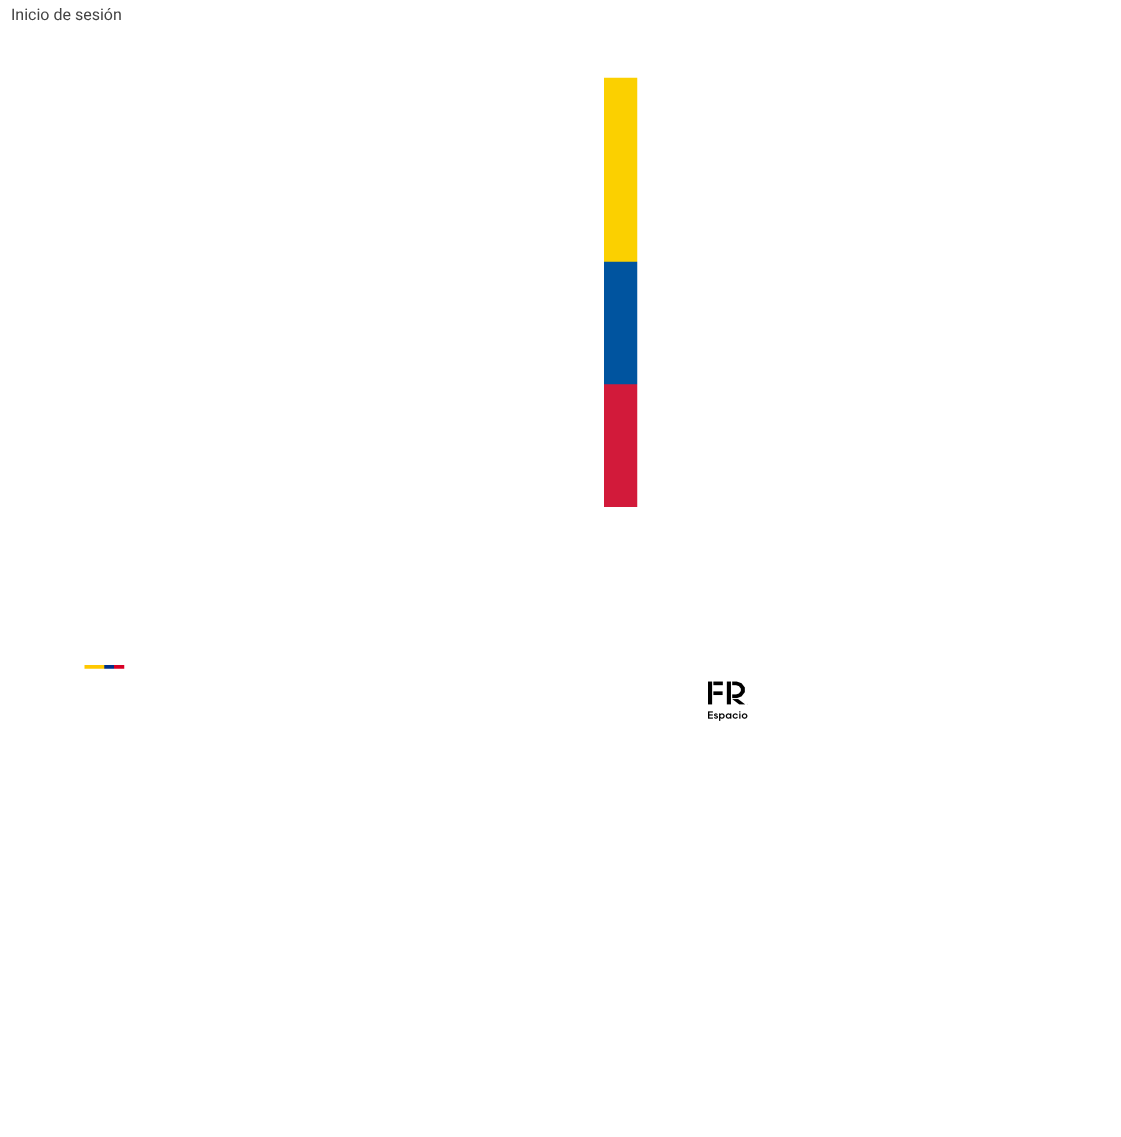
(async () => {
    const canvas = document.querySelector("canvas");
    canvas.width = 1121;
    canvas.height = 1137;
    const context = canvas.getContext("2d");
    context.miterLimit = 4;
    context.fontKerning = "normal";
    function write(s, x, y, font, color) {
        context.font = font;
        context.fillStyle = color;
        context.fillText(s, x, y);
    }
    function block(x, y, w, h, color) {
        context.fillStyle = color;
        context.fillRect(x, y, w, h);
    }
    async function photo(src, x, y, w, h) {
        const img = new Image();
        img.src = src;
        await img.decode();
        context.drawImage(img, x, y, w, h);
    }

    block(0, 0, 1121, 1137, "rgb(255, 255, 255)");
    write("Inicio de sesión", 11, 20, "16px Roboto", "rgb(68, 68, 68)");
    await photo("media/1.png", 604, 77, 34, 430);
    await photo("media/2.png", 84, 665, 41, 4);
    await photo("media/3.png", 708, 681, 40, 40);
})();
